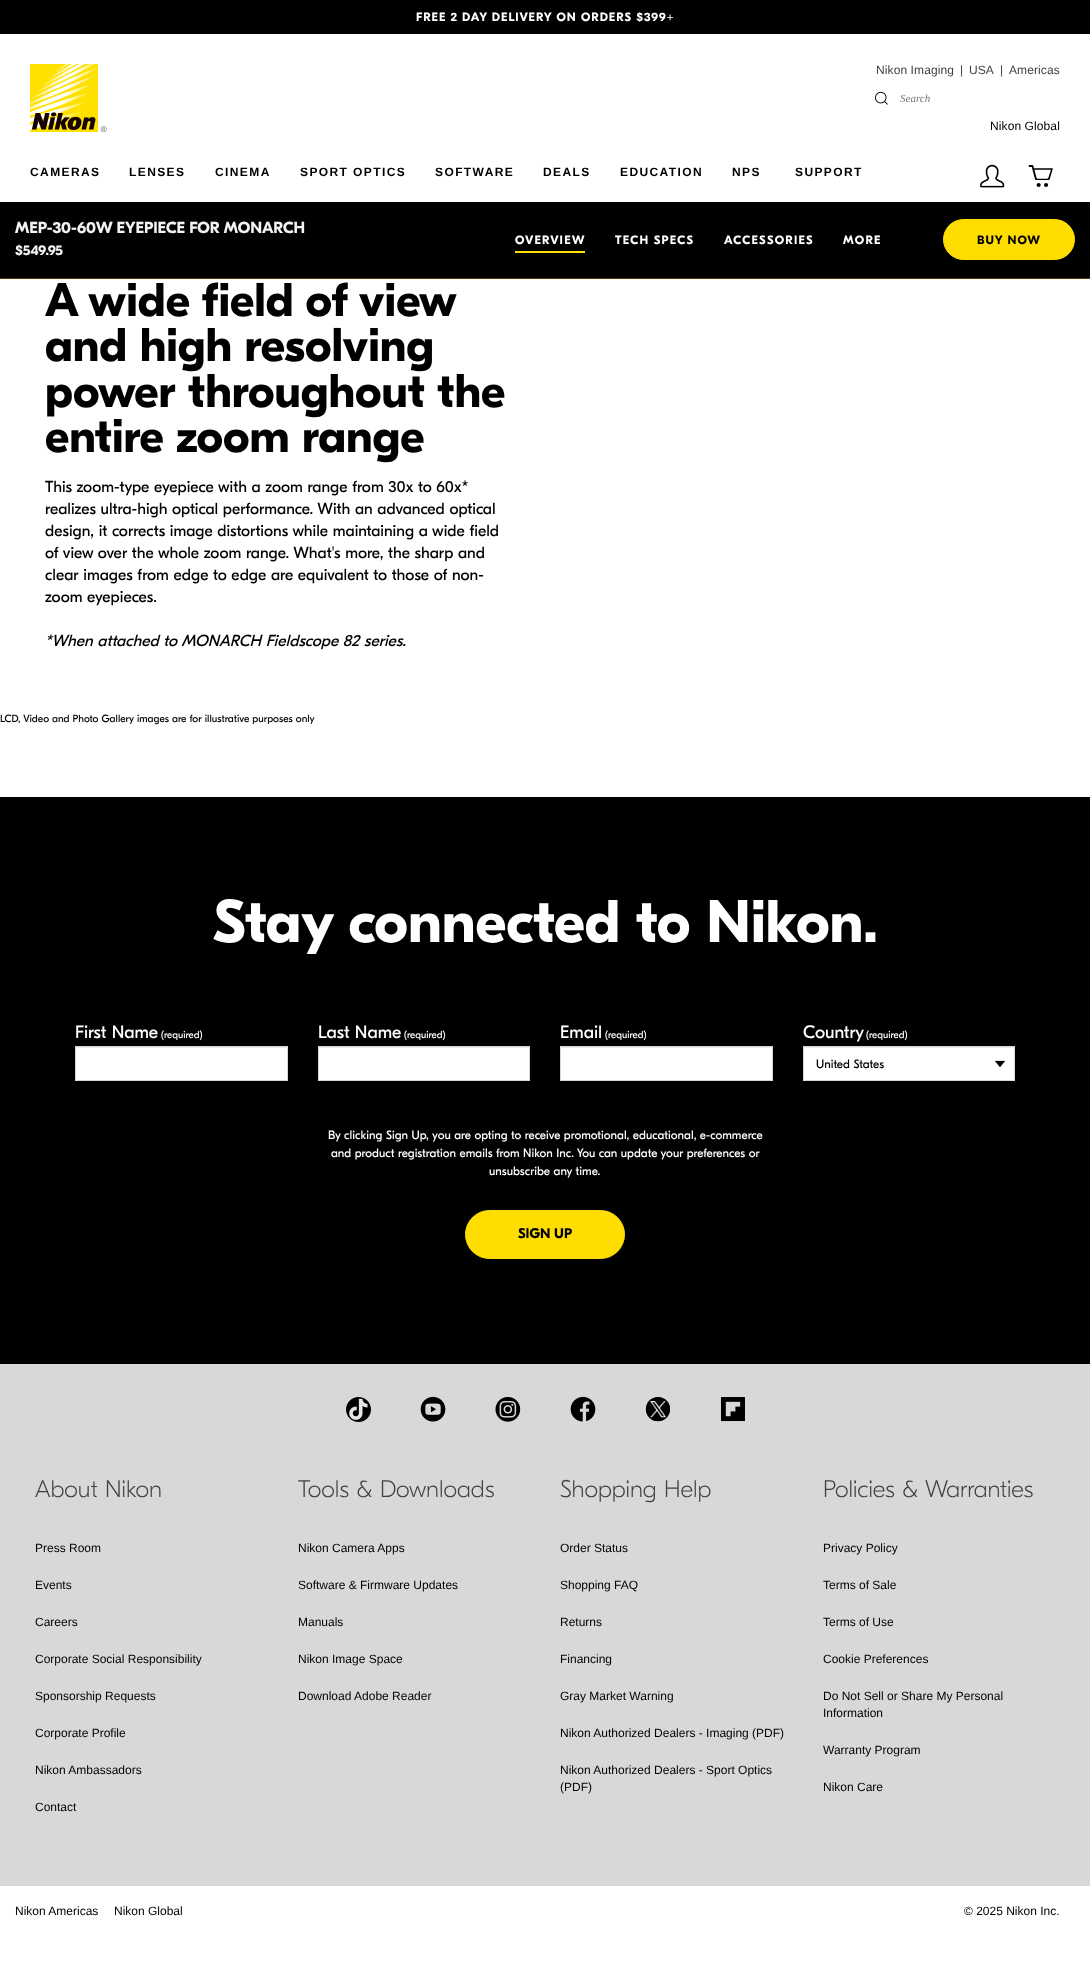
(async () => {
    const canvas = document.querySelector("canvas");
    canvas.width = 1090;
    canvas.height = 1972;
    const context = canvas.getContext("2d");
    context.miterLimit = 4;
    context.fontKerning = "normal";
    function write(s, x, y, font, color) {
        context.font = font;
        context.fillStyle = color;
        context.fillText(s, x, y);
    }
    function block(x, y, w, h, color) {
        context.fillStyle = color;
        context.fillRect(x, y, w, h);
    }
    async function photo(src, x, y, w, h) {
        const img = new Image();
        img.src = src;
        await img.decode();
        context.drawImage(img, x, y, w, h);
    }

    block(0, 0, 1090, 1972, "rgb(255, 255, 255)");
    block(0, 0, 1090, 34, "rgb(0, 0, 0)");
    context.letterSpacing = "1px";
    write("FREE 2 DAY DELIVERY ON ORDERS $399+", 416, 21, "bold 12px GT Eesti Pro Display", "rgb(255, 255, 255)");
    await photo("media/1.png", 30, 64, 77, 68);
    context.letterSpacing = "0.1px";
    write("Nikon Imaging", 876, 74, "12px Liberation Sans", "rgb(64, 64, 64)");
    write("|", 960, 74, "12px Liberation Sans", "rgb(64, 64, 64)");
    write("USA", 969, 74, "12px Liberation Sans", "rgb(64, 64, 64)");
    write("|", 1000, 74, "12px Liberation Sans", "rgb(64, 64, 64)");
    write("Americas", 1009, 74, "12px Liberation Sans", "rgb(64, 64, 64)");
    await photo("media/2.png", 875, 91, 13, 14);
    context.letterSpacing = "0px";
    write("Search", 900, 102, "italic 11px Liberation Serif", "rgb(118, 118, 118)");
    context.letterSpacing = "0.1px";
    write("Nikon Global", 990, 130, "12px Liberation Sans", "rgb(0, 0, 0)");
    context.letterSpacing = "1.4px";
    write("CAMERAS", 30, 176, "bold 12px Liberation Sans", "rgb(0, 0, 0)");
    write("LENSES", 129, 176, "bold 12px Liberation Sans", "rgb(0, 0, 0)");
    write("CINEMA", 215, 176, "bold 12px Liberation Sans", "rgb(0, 0, 0)");
    write("SPORT OPTICS", 300, 176, "bold 12px Liberation Sans", "rgb(0, 0, 0)");
    write("SOFTWARE", 435, 176, "bold 12px Liberation Sans", "rgb(0, 0, 0)");
    write("DEALS", 543, 176, "bold 12px Liberation Sans", "rgb(0, 0, 0)");
    write("EDUCATION", 620, 176, "bold 12px Liberation Sans", "rgb(0, 0, 0)");
    write("NPS", 732, 176, "bold 12px Liberation Sans", "rgb(0, 0, 0)");
    write("SUPPORT", 795, 176, "bold 12px Liberation Sans", "rgb(0, 0, 0)");
    await photo("media/3.png", 980, 164, 25, 24);
    await photo("media/4.png", 1028, 165, 25, 22);
    block(0, 202, 1090, 76, "rgb(0, 0, 0)");
    block(0, 278, 1090, 1, "rgb(64, 55, 0)");
    context.letterSpacing = "0px";
    write("MEP-30-60W EYEPIECE FOR MONARCH", 15, 233, "bold 16px GT Eesti Pro Display", "rgb(242, 242, 242)");
    write("$549.95", 15, 255, "bold 14px GT Eesti Pro Display", "rgb(242, 242, 242)");
    context.letterSpacing = "1.25px";
    write("OVERVIEW", 515, 244, "bold 12px GT Eesti Pro Display", "rgb(255, 255, 255)");
    block(515, 251, 70, 2, "rgb(255, 221, 0)");
    write("TECH SPECS", 615, 244, "bold 12px GT Eesti Pro Display", "rgb(255, 255, 255)");
    write("ACCESSORIES", 724, 244, "bold 12px GT Eesti Pro Display", "rgb(255, 255, 255)");
    write("MORE", 843, 244, "bold 12px GT Eesti Pro Display", "rgb(255, 255, 255)");
    context.fillStyle = "rgb(255, 221, 0)";
    context.beginPath();
    context.roundRect(943.5, 219.5, 131, 40, 20);
    context.fill();
    context.strokeStyle = "rgb(255, 221, 0)";
    context.stroke();
    context.letterSpacing = "1px";
    write("BUY NOW", 977, 244, "bold 12px GT Eesti Pro Display", "rgb(0, 0, 0)");
    context.letterSpacing = "0px";
    context.wordSpacing = "-0.5px";
    write("A wide field of view", 45, 316, "bold 47.25px GT Eesti Pro Display", "rgb(0, 0, 0)");
    context.wordSpacing = "0px";
    write("and high resolving", 45, 361, "bold 47.25px GT Eesti Pro Display", "rgb(0, 0, 0)");
    write("power throughout the", 45, 407, "bold 47.25px GT Eesti Pro Display", "rgb(0, 0, 0)");
    write("entire zoom range", 45, 452, "bold 47.25px GT Eesti Pro Display", "rgb(0, 0, 0)");
    write("This zoom-type eyepiece with a zoom range from 30x to 60x*", 45, 492, "16px GT Eesti Pro Display", "rgb(0, 0, 0)");
    write("realizes ultra-high optical performance. With an advanced optical", 45, 514, "16px GT Eesti Pro Display", "rgb(0, 0, 0)");
    write("design, it corrects image distortions while maintaining a wide field", 45, 536, "16px GT Eesti Pro Display", "rgb(0, 0, 0)");
    write("of view over the whole zoom range. What's more, the sharp and", 45, 558, "16px GT Eesti Pro Display", "rgb(0, 0, 0)");
    write("clear images from edge to edge are equivalent to those of non-", 45, 580, "16px GT Eesti Pro Display", "rgb(0, 0, 0)");
    write("zoom eyepieces.", 45, 602, "16px GT Eesti Pro Display", "rgb(0, 0, 0)");
    write("*When attached to MONARCH Fieldscope 82 series.", 45, 646, "italic 16px GT Eesti Pro Display", "rgb(0, 0, 0)");
    write("LCD, Video and Photo Gallery images are for illustrative purposes only", 0, 722, "10.4px GT Eesti Pro Display", "rgb(0, 0, 0)");
    block(0, 797, 1090, 567, "rgb(0, 0, 0)");
    write("Stay connected to Nikon.", 213, 942, "bold 60px GT Eesti Pro Display", "rgb(255, 255, 255)");
    write("First Name", 75, 1038, "18px GT Eesti Pro Display", "rgb(255, 255, 255)");
    write("(required)", 161, 1038, "10px GT Eesti Pro Display", "rgb(255, 255, 255)");
    block(76, 1048, 211, 32, "rgb(255, 255, 255)");
    block(76, 1047, 211, 1, "rgb(236, 236, 236)");
    context.strokeStyle = "rgb(216, 216, 216)";
    context.strokeRect(75.5, 1046.5, 212, 34);
    write("Last Name", 318, 1038, "18px GT Eesti Pro Display", "rgb(255, 255, 255)");
    write("(required)", 404, 1038, "10px GT Eesti Pro Display", "rgb(255, 255, 255)");
    block(319, 1048, 210, 32, "rgb(255, 255, 255)");
    block(319, 1047, 210, 1, "rgb(236, 236, 236)");
    context.strokeRect(318.5, 1046.5, 211, 34);
    write("Email", 560, 1038, "18px GT Eesti Pro Display", "rgb(255, 255, 255)");
    write("(required)", 605, 1038, "10px GT Eesti Pro Display", "rgb(255, 255, 255)");
    block(561, 1048, 211, 32, "rgb(255, 255, 255)");
    block(561, 1047, 211, 1, "rgb(236, 236, 236)");
    context.strokeRect(560.5, 1046.5, 212, 34);
    write("Country", 803, 1038, "18px GT Eesti Pro Display", "rgb(255, 255, 255)");
    write("(required)", 866, 1038, "10px GT Eesti Pro Display", "rgb(255, 255, 255)");
    block(804, 1048, 210, 32, "rgb(255, 255, 255)");
    block(804, 1047, 210, 1, "rgb(236, 236, 236)");
    await photo("media/5.png", 995, 1060, 10, 7);
    context.strokeRect(803.5, 1046.5, 211, 34);
    write("United States", 816, 1068, "12px GT Eesti Pro Display", "rgb(0, 0, 0)");
    write("By clicking Sign Up, you are opting to receive promotional, educational, e-commerce", 328, 1139, "12px GT Eesti Pro Display", "rgb(255, 255, 255)");
    write("and product registration emails from Nikon Inc. You can update your preferences or", 331, 1157, "12px GT Eesti Pro Display", "rgb(255, 255, 255)");
    write("unsubscribe any time.", 489, 1175, "12px GT Eesti Pro Display", "rgb(255, 255, 255)");
    context.fillStyle = "rgb(255, 221, 0)";
    context.beginPath();
    context.roundRect(465.5, 1210.5, 159, 48, 24);
    context.fill();
    context.strokeStyle = "rgb(255, 221, 0)";
    context.stroke();
    write("SIGN UP", 518, 1238, "bold 14px GT Eesti Pro Display", "rgb(0, 0, 0)");
    block(0, 1364, 1090, 522, "rgb(216, 216, 216)");
    await photo("media/6.png", 346, 1397, 25, 25);
    await photo("media/7.png", 420, 1396, 26, 26);
    await photo("media/8.png", 495, 1396, 26, 26);
    await photo("media/9.png", 570, 1396, 26, 26);
    await photo("media/10.png", 643, 1394, 30, 30);
    await photo("media/11.png", 721, 1397, 24, 25);
    write("About Nikon", 35, 1497, "100 24px GT Eesti Pro Display", "rgb(64, 64, 64)");
    write("Press Room", 35, 1552, "12px Liberation Sans", "rgb(0, 0, 0)");
    write("Events", 35, 1589, "12px Liberation Sans", "rgb(0, 0, 0)");
    write("Careers", 35, 1626, "12px Liberation Sans", "rgb(0, 0, 0)");
    write("Corporate Social Responsibility", 35, 1663, "12px Liberation Sans", "rgb(0, 0, 0)");
    write("Sponsorship Requests", 35, 1700, "12px Liberation Sans", "rgb(0, 0, 0)");
    write("Corporate Profile", 35, 1737, "12px Liberation Sans", "rgb(0, 0, 0)");
    write("Nikon Ambassadors", 35, 1774, "12px Liberation Sans", "rgb(0, 0, 0)");
    write("Contact", 35, 1811, "12px Liberation Sans", "rgb(0, 0, 0)");
    write("Tools & Downloads", 298, 1497, "100 24px GT Eesti Pro Display", "rgb(64, 64, 64)");
    write("Nikon Camera Apps", 298, 1552, "12px Liberation Sans", "rgb(0, 0, 0)");
    write("Software & Firmware Updates", 298, 1589, "12px Liberation Sans", "rgb(0, 0, 0)");
    write("Manuals", 298, 1626, "12px Liberation Sans", "rgb(0, 0, 0)");
    write("Nikon Image Space", 298, 1663, "12px Liberation Sans", "rgb(0, 0, 0)");
    write("Download Adobe Reader", 298, 1700, "12px Liberation Sans", "rgb(0, 0, 0)");
    write("Shopping Help", 560, 1497, "100 24px GT Eesti Pro Display", "rgb(64, 64, 64)");
    write("Order Status", 560, 1552, "12px Liberation Sans", "rgb(0, 0, 0)");
    write("Shopping FAQ", 560, 1589, "12px Liberation Sans", "rgb(0, 0, 0)");
    write("Returns", 560, 1626, "12px Liberation Sans", "rgb(0, 0, 0)");
    write("Financing", 560, 1663, "12px Liberation Sans", "rgb(0, 0, 0)");
    write("Gray Market Warning", 560, 1700, "12px Liberation Sans", "rgb(0, 0, 0)");
    write("Nikon Authorized Dealers - Imaging (PDF)", 560, 1737, "12px Liberation Sans", "rgb(0, 0, 0)");
    write("Nikon Authorized Dealers - Sport Optics", 560, 1774, "12px Liberation Sans", "rgb(0, 0, 0)");
    write("(PDF)", 560, 1791, "12px Liberation Sans", "rgb(0, 0, 0)");
    write("Policies & Warranties", 823, 1497, "100 24px GT Eesti Pro Display", "rgb(64, 64, 64)");
    write("Privacy Policy", 823, 1552, "12px Liberation Sans", "rgb(0, 0, 0)");
    write("Terms of Sale", 823, 1589, "12px Liberation Sans", "rgb(0, 0, 0)");
    write("Terms of Use", 823, 1626, "12px Liberation Sans", "rgb(0, 0, 0)");
    write("Cookie Preferences", 823, 1663, "12px Liberation Sans", "rgb(0, 0, 0)");
    write("Do Not Sell or Share My Personal", 823, 1700, "12px Liberation Sans", "rgb(0, 0, 0)");
    write("Information", 823, 1717, "12px Liberation Sans", "rgb(0, 0, 0)");
    write("Warranty Program", 823, 1754, "12px Liberation Sans", "rgb(0, 0, 0)");
    write("Nikon Care", 823, 1791, "12px Liberation Sans", "rgb(0, 0, 0)");
    write("Nikon Americas", 15, 1915, "12px Liberation Sans", "rgb(0, 0, 0)");
    write("Nikon Global", 114, 1915, "12px Liberation Sans", "rgb(0, 0, 0)");
    write("© 2025 Nikon Inc.", 964, 1915, "12px Liberation Sans", "rgb(0, 0, 0)");
})();
